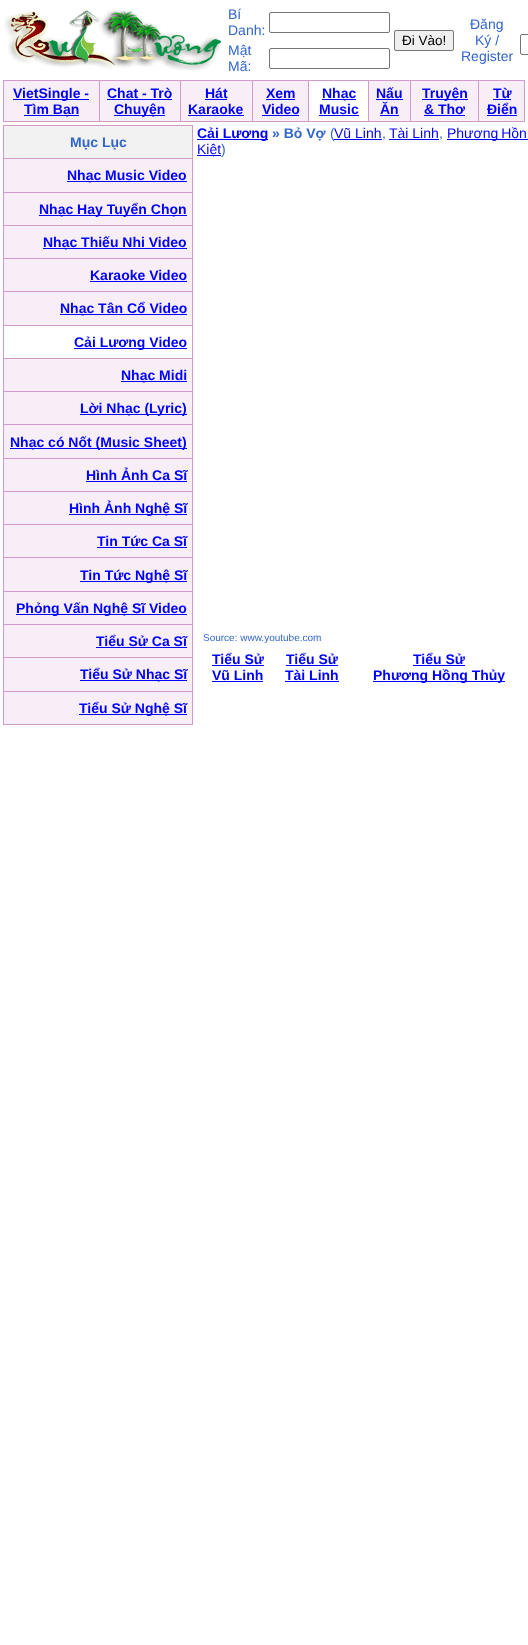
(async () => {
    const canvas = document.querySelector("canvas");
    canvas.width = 528;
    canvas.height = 1645;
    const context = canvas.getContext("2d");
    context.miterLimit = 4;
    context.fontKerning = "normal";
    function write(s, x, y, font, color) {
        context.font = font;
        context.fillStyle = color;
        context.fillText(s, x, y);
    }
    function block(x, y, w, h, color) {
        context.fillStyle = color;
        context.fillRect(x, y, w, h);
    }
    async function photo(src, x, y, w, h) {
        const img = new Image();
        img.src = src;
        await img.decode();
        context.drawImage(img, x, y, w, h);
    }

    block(0, 0, 528, 1645, "rgb(255, 255, 255)");
    await photo("media/1.png", 4, 10, 217, 60);
    write("Bí", 228, 19, "14px Liberation Sans", "rgb(51, 102, 204)");
    write("Danh:", 228, 35, "14px Liberation Sans", "rgb(51, 102, 204)");
    context.beginPath();
    context.roundRect(269.5, 12.5, 120, 20, 1.5);
    context.strokeStyle = "rgb(118, 118, 118)";
    context.stroke();
    context.fillStyle = "rgb(239, 239, 239)";
    context.beginPath();
    context.roundRect(394.5, 30.5, 59, 20, 1.5);
    context.fill();
    context.stroke();
    write("Đi Vào!", 402, 45, "13.5px Liberation Sans", "rgb(0, 0, 0)");
    write("Mật", 228, 55, "14px Liberation Sans", "rgb(51, 102, 204)");
    write("Mã:", 228, 71, "14px Liberation Sans", "rgb(51, 102, 204)");
    context.beginPath();
    context.roundRect(269.5, 48.5, 120, 20, 1.5);
    context.stroke();
    write("Đăng", 470, 29, "14px Liberation Sans", "rgb(51, 102, 204)");
    write("Ký /", 475, 45, "14px Liberation Sans", "rgb(51, 102, 204)");
    write("Register", 461, 61, "14px Liberation Sans", "rgb(51, 102, 204)");
    context.beginPath();
    context.roundRect(520.5, 34.5, 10, 20, 1.5);
    context.stroke();
    block(3, 80, 522, 42, "rgb(210, 154, 200)");
    block(4, 81, 95, 40, "rgb(247, 238, 247)");
    block(13, 99, 76, 1, "rgb(0, 0, 255)");
    write("VietSingle -", 13, 98, "bold 14px Liberation Sans", "rgb(0, 0, 255)");
    block(24, 115, 55, 1, "rgb(0, 0, 255)");
    write("Tìm Bạn", 24, 114, "bold 14px Liberation Sans", "rgb(0, 0, 255)");
    block(100, 81, 80, 40, "rgb(247, 238, 247)");
    write("Chat - Trò", 107, 98, "bold 14px Liberation Sans", "rgb(0, 0, 255)");
    block(107, 99, 65, 1, "rgb(0, 0, 255)");
    block(114, 115, 51, 1, "rgb(0, 0, 255)");
    write("Chuyện", 114, 114, "bold 14px Liberation Sans", "rgb(0, 0, 255)");
    block(181, 81, 71, 40, "rgb(247, 238, 247)");
    write("Hát", 205, 98, "bold 14px Liberation Sans", "rgb(0, 0, 255)");
    block(205, 99, 22, 1, "rgb(0, 0, 255)");
    write("Karaoke", 188, 114, "bold 14px Liberation Sans", "rgb(0, 0, 255)");
    block(188, 115, 56, 1, "rgb(0, 0, 255)");
    block(253, 81, 55, 40, "rgb(247, 238, 247)");
    write("Xem", 266, 98, "bold 14px Liberation Sans", "rgb(0, 0, 255)");
    block(266, 99, 29, 1, "rgb(0, 0, 255)");
    write("Video", 262, 114, "bold 14px Liberation Sans", "rgb(0, 0, 255)");
    block(262, 115, 37, 1, "rgb(0, 0, 255)");
    block(309, 81, 59, 40, "rgb(255, 255, 255)");
    block(322, 99, 34, 1, "rgb(0, 0, 255)");
    write("Nhạc", 322, 98, "bold 14px Liberation Sans", "rgb(0, 0, 255)");
    write("Music", 319, 114, "bold 14px Liberation Sans", "rgb(0, 0, 255)");
    block(319, 115, 40, 1, "rgb(0, 0, 255)");
    block(369, 81, 41, 40, "rgb(247, 238, 247)");
    write("Nấu", 376, 98, "bold 14px Liberation Sans", "rgb(0, 0, 255)");
    block(376, 99, 27, 1, "rgb(0, 0, 255)");
    write("Ăn", 380, 114, "bold 14px Liberation Sans", "rgb(0, 0, 255)");
    block(380, 115, 19, 1, "rgb(0, 0, 255)");
    block(411, 81, 67, 40, "rgb(247, 238, 247)");
    block(422, 99, 46, 1, "rgb(0, 0, 255)");
    write("Truyện", 422, 98, "bold 14px Liberation Sans", "rgb(0, 0, 255)");
    write("& Thơ", 424, 114, "bold 14px Liberation Sans", "rgb(0, 0, 255)");
    block(424, 115, 41, 1, "rgb(0, 0, 255)");
    block(479, 81, 45, 40, "rgb(247, 238, 247)");
    write("Từ", 493, 98, "bold 14px Liberation Sans", "rgb(0, 0, 255)");
    block(493, 99, 18, 1, "rgb(0, 0, 255)");
    write("Điển", 487, 114, "bold 14px Liberation Sans", "rgb(0, 0, 255)");
    block(487, 115, 30, 1, "rgb(0, 0, 255)");
    block(3, 125, 190, 600, "rgb(210, 154, 200)");
    block(4, 126, 188, 32, "rgb(242, 242, 242)");
    write("Mục Lục", 70, 147, "bold 14px Liberation Sans", "rgb(51, 102, 204)");
    block(4, 159, 188, 33, "rgb(247, 238, 247)");
    block(67, 181, 120, 1, "rgb(0, 0, 255)");
    write("Nhạc Music Video", 67, 180, "bold 14px Liberation Sans", "rgb(0, 0, 255)");
    block(4, 193, 188, 32, "rgb(247, 238, 247)");
    block(39, 215, 148, 1, "rgb(0, 0, 255)");
    write("Nhạc Hay Tuyển Chọn", 39, 214, "bold 14px Liberation Sans", "rgb(0, 0, 255)");
    block(4, 226, 188, 32, "rgb(247, 238, 247)");
    block(43, 248, 144, 1, "rgb(0, 0, 255)");
    write("Nhạc Thiếu Nhi Video", 43, 247, "bold 14px Liberation Sans", "rgb(0, 0, 255)");
    block(4, 259, 188, 32, "rgb(247, 238, 247)");
    write("Karaoke Video", 90, 280, "bold 14px Liberation Sans", "rgb(0, 0, 255)");
    block(90, 281, 97, 1, "rgb(0, 0, 255)");
    block(4, 292, 188, 33, "rgb(247, 238, 247)");
    block(60, 314, 127, 1, "rgb(0, 0, 255)");
    write("Nhạc Tân Cổ Video", 60, 313, "bold 14px Liberation Sans", "rgb(0, 0, 255)");
    block(4, 326, 188, 32, "rgb(255, 255, 255)");
    block(74, 348, 113, 1, "rgb(0, 0, 255)");
    write("Cải Lương Video", 74, 347, "bold 14px Liberation Sans", "rgb(0, 0, 255)");
    block(4, 359, 188, 32, "rgb(247, 238, 247)");
    block(121, 381, 66, 1, "rgb(0, 0, 255)");
    write("Nhạc Midi", 121, 380, "bold 14px Liberation Sans", "rgb(0, 0, 255)");
    block(4, 392, 188, 32, "rgb(247, 238, 247)");
    block(80, 414, 107, 1, "rgb(0, 0, 255)");
    write("Lời Nhạc (Lyric)", 80, 413, "bold 14px Liberation Sans", "rgb(0, 0, 255)");
    block(4, 425, 188, 33, "rgb(247, 238, 247)");
    block(10, 448, 177, 1, "rgb(0, 0, 255)");
    write("Nhạc có Nốt (Music Sheet)", 10, 447, "bold 14px Liberation Sans", "rgb(0, 0, 255)");
    block(4, 459, 188, 32, "rgb(247, 238, 247)");
    write("Hình Ảnh Ca Sĩ", 86, 480, "bold 14px Liberation Sans", "rgb(0, 0, 255)");
    block(86, 481, 101, 1, "rgb(0, 0, 255)");
    block(4, 492, 188, 32, "rgb(247, 238, 247)");
    block(69, 514, 118, 1, "rgb(0, 0, 255)");
    write("Hình Ảnh Nghệ Sĩ", 69, 513, "bold 14px Liberation Sans", "rgb(0, 0, 255)");
    block(4, 525, 188, 32, "rgb(247, 238, 247)");
    write("Tin Tức Ca Sĩ", 97, 546, "bold 14px Liberation Sans", "rgb(0, 0, 255)");
    block(97, 547, 90, 1, "rgb(0, 0, 255)");
    block(4, 558, 188, 33, "rgb(247, 238, 247)");
    block(80, 581, 107, 1, "rgb(0, 0, 255)");
    write("Tin Tức Nghệ Sĩ", 80, 580, "bold 14px Liberation Sans", "rgb(0, 0, 255)");
    block(4, 592, 188, 32, "rgb(247, 238, 247)");
    block(16, 614, 171, 1, "rgb(0, 0, 255)");
    write("Phỏng Vấn Nghệ Sĩ Video", 16, 613, "bold 14px Liberation Sans", "rgb(0, 0, 255)");
    block(4, 625, 188, 32, "rgb(247, 238, 247)");
    write("Tiểu Sử Ca Sĩ", 96, 646, "bold 14px Liberation Sans", "rgb(0, 0, 255)");
    block(96, 647, 91, 1, "rgb(0, 0, 255)");
    block(4, 658, 188, 33, "rgb(247, 238, 247)");
    block(80, 680, 107, 1, "rgb(0, 0, 255)");
    write("Tiểu Sử Nhạc Sĩ", 80, 679, "bold 14px Liberation Sans", "rgb(0, 0, 255)");
    block(4, 692, 188, 32, "rgb(247, 238, 247)");
    block(79, 714, 108, 1, "rgb(0, 0, 255)");
    write("Tiểu Sử Nghệ Sĩ", 79, 713, "bold 14px Liberation Sans", "rgb(0, 0, 255)");
    block(197, 139, 71, 1, "rgb(0, 0, 255)");
    write("Cải Lương", 197, 138, "bold 14px Liberation Sans", "rgb(0, 0, 255)");
    write("» Bỏ Vợ", 272, 138, "bold 14px Liberation Sans", "rgb(51, 102, 204)");
    write("(", 330, 138, "14px Liberation Sans", "rgb(51, 102, 204)");
    write("Vũ Linh", 334, 138, "14px Liberation Sans", "rgb(0, 0, 255)");
    block(334, 139, 48, 1, "rgb(0, 0, 255)");
    write(",", 382, 138, "14px Liberation Sans", "rgb(51, 102, 204)");
    write("Tài Linh", 389, 138, "14px Liberation Sans", "rgb(0, 0, 255)");
    block(389, 139, 50, 1, "rgb(0, 0, 255)");
    write(",", 439, 138, "14px Liberation Sans", "rgb(51, 102, 204)");
    block(447, 139, 81, 1, "rgb(0, 0, 255)");
    context.wordSpacing = "-1px";
    write("Phương Hồn", 447, 138, "14px Liberation Sans", "rgb(0, 0, 255)");
    block(197, 155, 24, 1, "rgb(0, 0, 255)");
    context.wordSpacing = "0px";
    write("Kiệt", 197, 154, "14px Liberation Sans", "rgb(0, 0, 255)");
    write(")", 221, 154, "14px Liberation Sans", "rgb(51, 102, 204)");
    write("Source: www.youtube.com", 203, 641, "10px Liberation Sans", "rgb(51, 102, 204)");
    write("Tiểu Sử", 212, 664, "bold 14px Liberation Sans", "rgb(0, 0, 255)");
    block(212, 665, 52, 1, "rgb(0, 0, 255)");
    write("Vũ Linh", 212, 680, "bold 14px Liberation Sans", "rgb(0, 0, 255)");
    block(212, 681, 51, 1, "rgb(0, 0, 255)");
    write("Tiểu Sử", 286, 664, "bold 14px Liberation Sans", "rgb(0, 0, 255)");
    block(286, 665, 52, 1, "rgb(0, 0, 255)");
    write("Tài Linh", 285, 680, "bold 14px Liberation Sans", "rgb(0, 0, 255)");
    block(285, 681, 54, 1, "rgb(0, 0, 255)");
    write("Tiểu Sử", 413, 664, "bold 14px Liberation Sans", "rgb(0, 0, 255)");
    block(413, 665, 52, 1, "rgb(0, 0, 255)");
    block(373, 681, 132, 1, "rgb(0, 0, 255)");
    write("Phương Hồng Thủy", 373, 680, "bold 14px Liberation Sans", "rgb(0, 0, 255)");
})();
